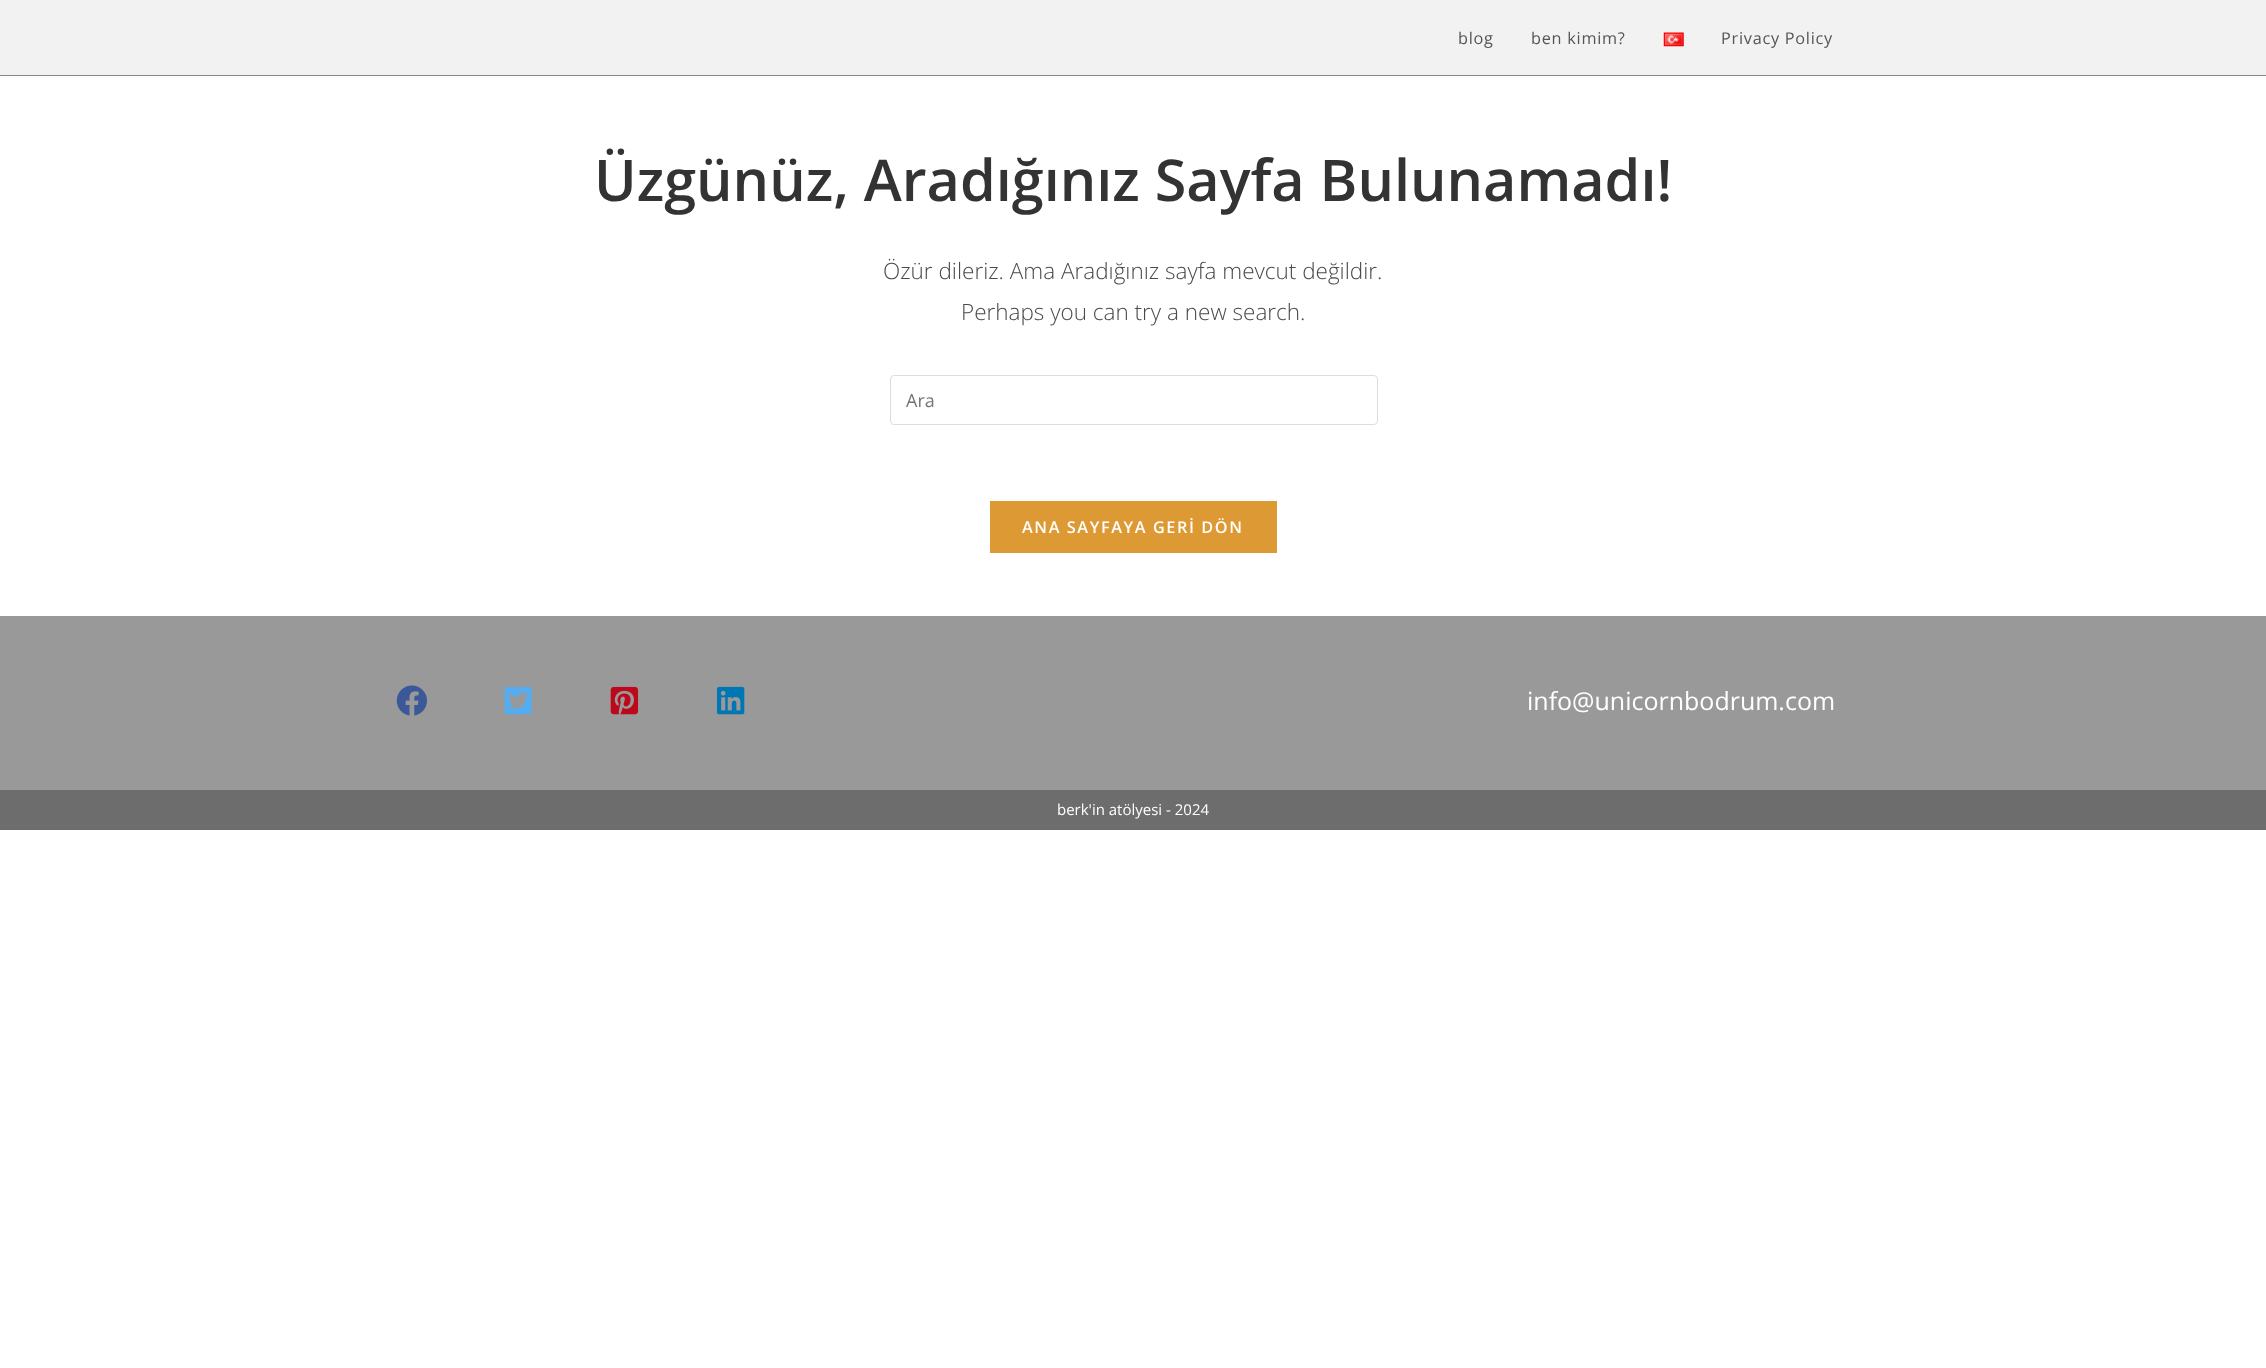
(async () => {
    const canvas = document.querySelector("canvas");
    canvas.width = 2266;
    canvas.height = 1368;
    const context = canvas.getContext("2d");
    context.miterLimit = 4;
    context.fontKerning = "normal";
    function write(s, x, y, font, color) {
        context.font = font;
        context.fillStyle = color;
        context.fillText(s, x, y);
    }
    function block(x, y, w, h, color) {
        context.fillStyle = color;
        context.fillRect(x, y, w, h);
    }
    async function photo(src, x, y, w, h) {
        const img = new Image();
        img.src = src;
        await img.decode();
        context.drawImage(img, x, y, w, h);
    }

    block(0, 0, 2266, 1368, "rgb(255, 255, 255)");
    block(0, 0, 2266, 75, "rgb(242, 242, 242)");
    block(0, 75, 2266, 1, "rgb(135, 135, 135)");
    context.letterSpacing = "0.75px";
    write("blog", 1458, 44, "16.25px Open Sans", "rgb(85, 85, 85)");
    write("ben kimim?", 1531, 44, "16.25px Open Sans", "rgb(85, 85, 85)");
    await photo("media/1.png", 1663, 32, 21, 15);
    write("Privacy Policy", 1721, 44, "16.25px Open Sans", "rgb(85, 85, 85)");
    context.letterSpacing = "0px";
    write("Üzgünüz, Aradığınız Sayfa Bulunamadı!", 594, 201, "600 57.5px Open Sans", "rgb(51, 51, 51)");
    write("Özür dileriz. Ama Aradığınız sayfa mevcut değildir.", 883, 279, "300 22.5px Open Sans", "rgb(74, 74, 74)");
    write("Perhaps you can try a new search.", 961, 320, "300 22.5px Open Sans", "rgb(74, 74, 74)");
    context.beginPath();
    context.roundRect(890.5, 375.5, 487, 49, 3.5);
    context.strokeStyle = "rgb(221, 221, 221)";
    context.stroke();
    write("Ara", 906, 407, "18px Open Sans", "rgb(117, 117, 117)");
    block(990, 501, 287, 52, "rgb(221, 153, 51)");
    context.letterSpacing = "1.6px";
    write("ANA SAYFAYA GERİ DÖN", 1022, 533, "600 16.25px Open Sans", "rgb(255, 255, 255)");
    block(0, 616, 2266, 174, "rgb(153, 153, 153)");
    await photo("media/2.png", 396, 685, 31, 31);
    await photo("media/3.png", 504, 686, 28, 29);
    await photo("media/4.png", 610, 686, 29, 29);
    await photo("media/5.png", 716, 686, 29, 29);
    context.letterSpacing = "0px";
    write("info@unicornbodrum.com", 1527, 710, "25px Open Sans", "rgb(255, 255, 255)");
    block(0, 790, 2266, 40, "rgb(109, 109, 109)");
    write("berk'in atölyesi - 2024", 1057, 815, "15px Open Sans", "rgb(255, 255, 255)");
})();
